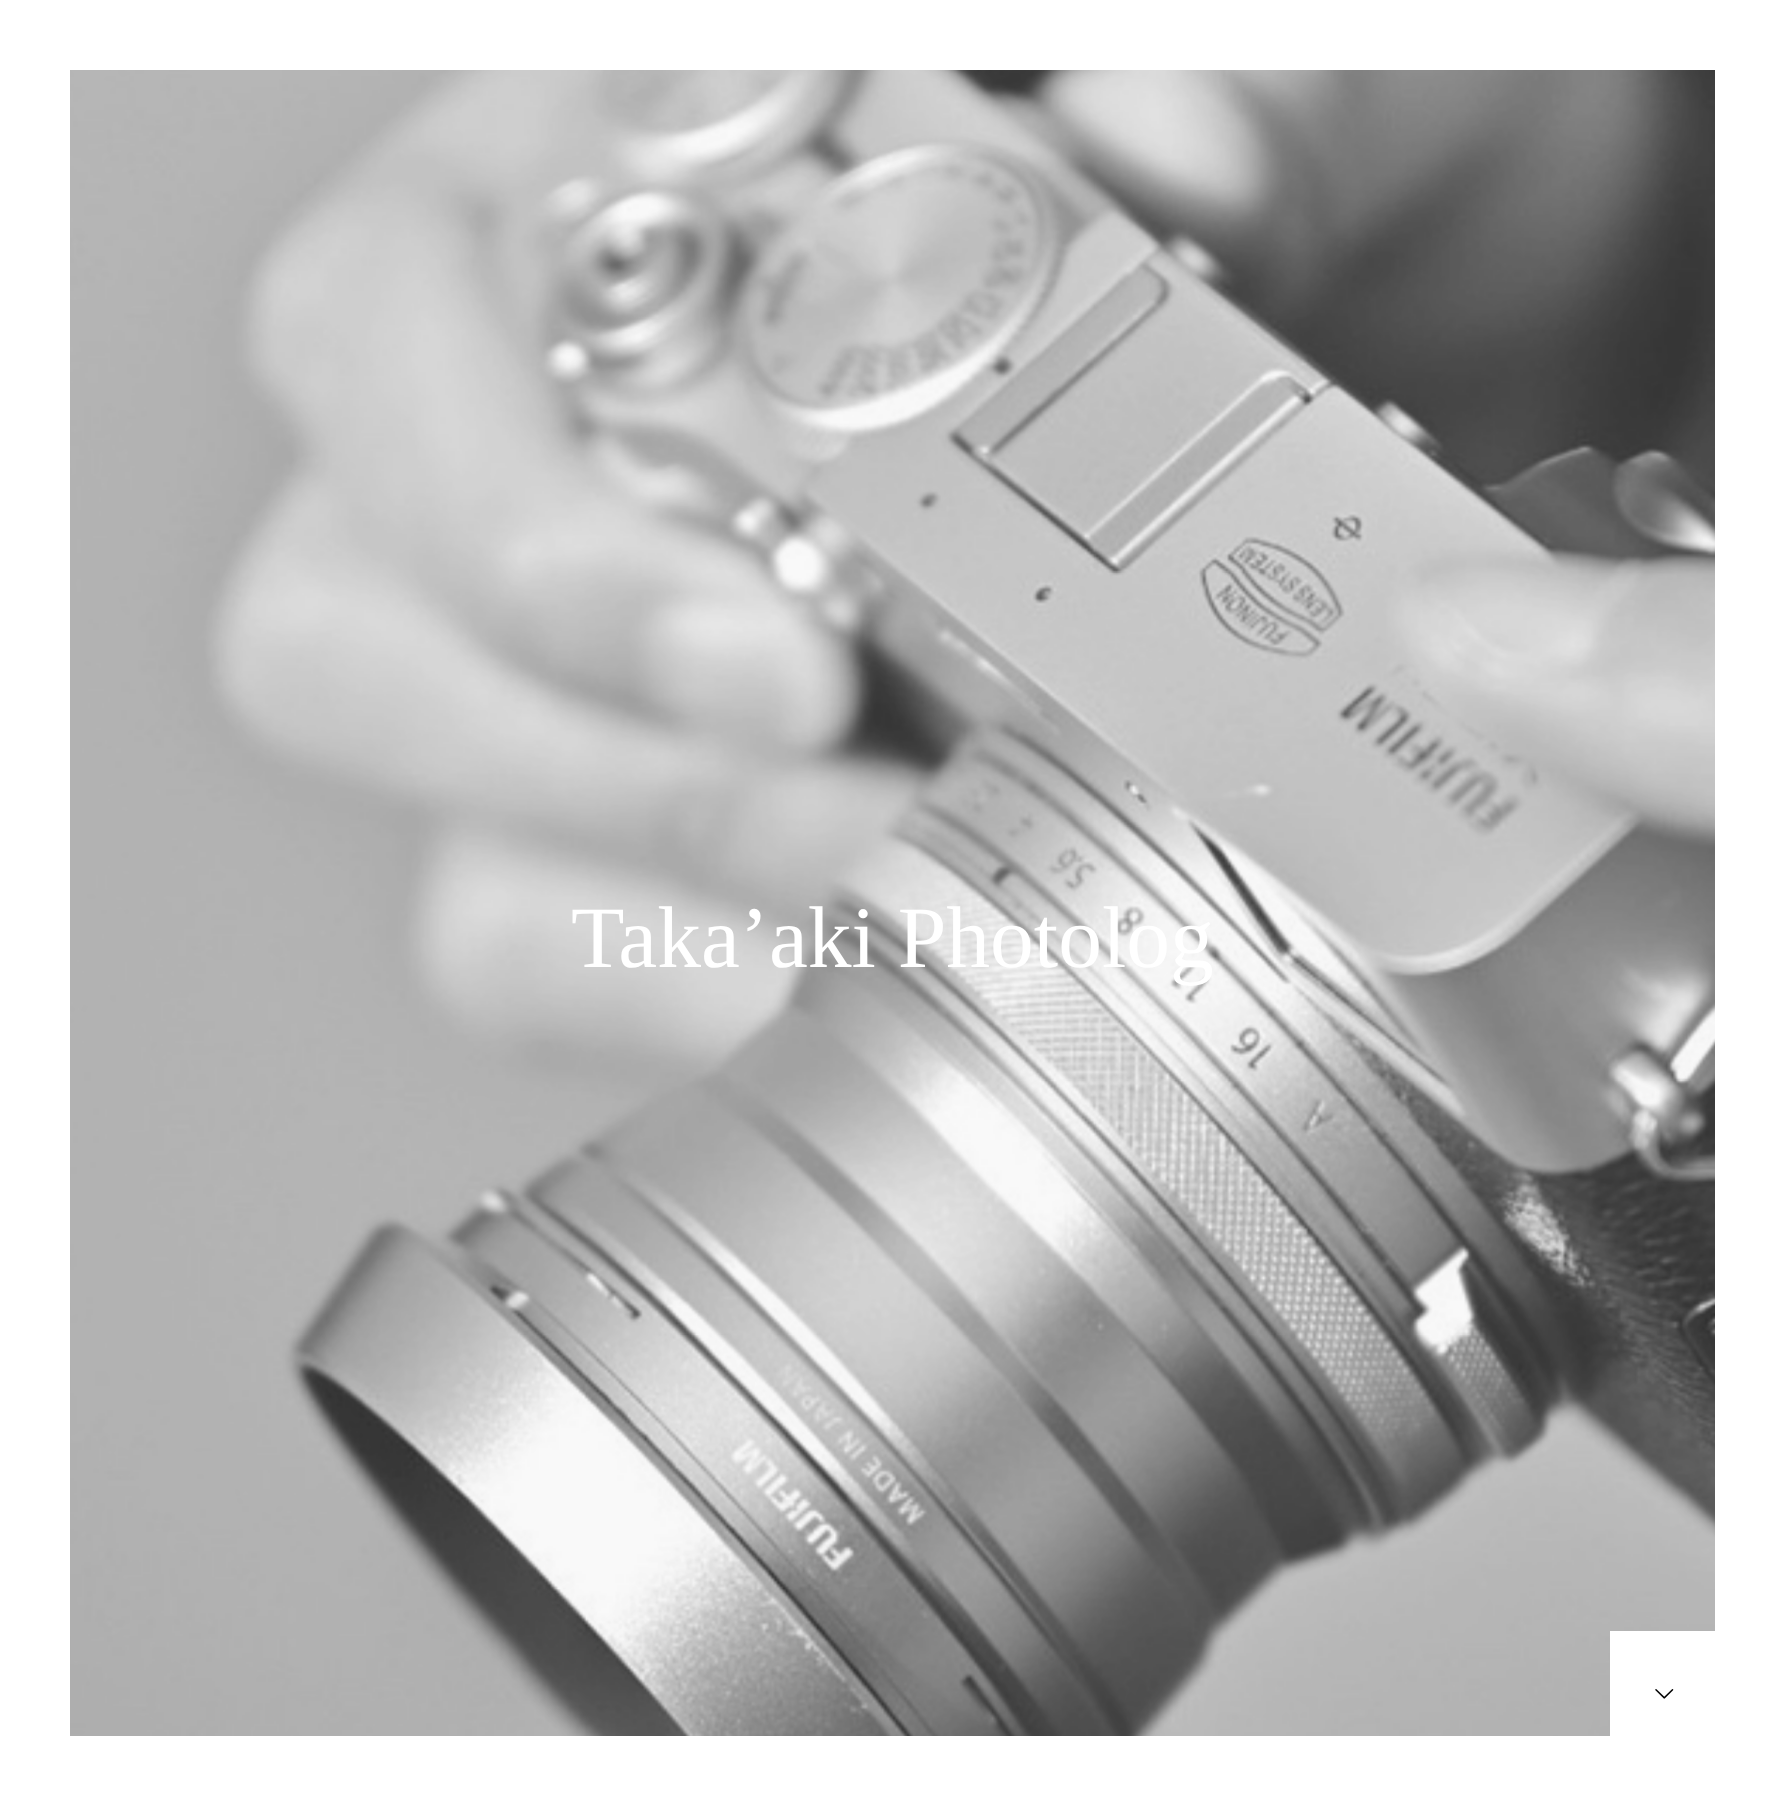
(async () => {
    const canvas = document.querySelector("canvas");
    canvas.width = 1785;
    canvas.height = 1805;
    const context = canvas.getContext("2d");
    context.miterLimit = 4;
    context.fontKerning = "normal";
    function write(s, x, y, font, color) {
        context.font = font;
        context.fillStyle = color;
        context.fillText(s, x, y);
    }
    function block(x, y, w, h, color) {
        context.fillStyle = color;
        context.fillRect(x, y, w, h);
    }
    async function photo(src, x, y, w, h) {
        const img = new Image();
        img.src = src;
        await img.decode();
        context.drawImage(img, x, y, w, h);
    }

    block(0, 0, 1785, 1805, "rgb(255, 255, 255)");
    await photo("media/1.png", 70, 70, 1645, 1666);
    write("Taka’aki Photolog", 571, 967, "87.5px Liberation Serif", "rgb(255, 255, 255)");
    block(1610, 1631, 105, 105, "rgb(255, 255, 255)");
    await photo("media/2.png", 1655, 1689, 19, 10);
})();
